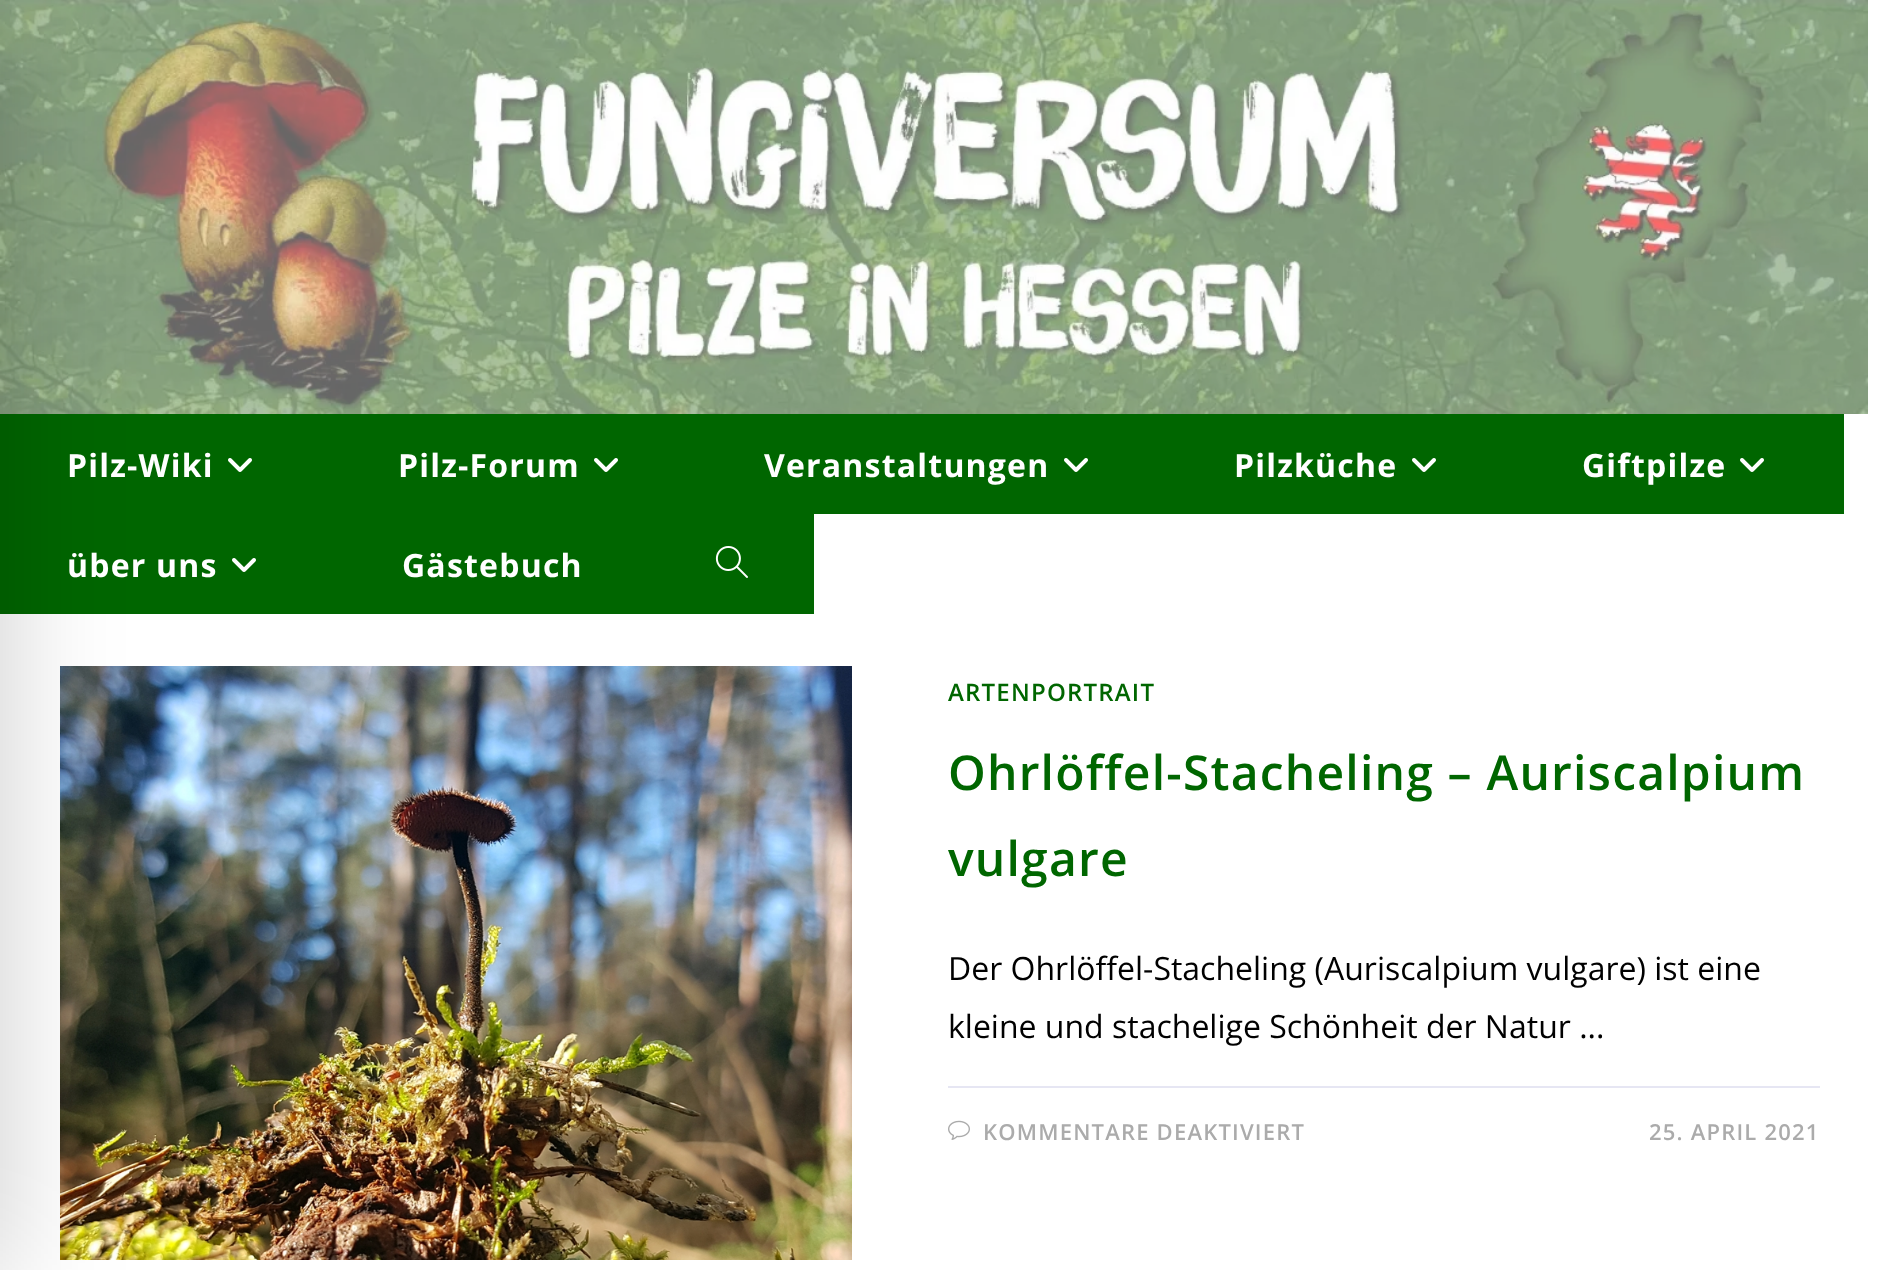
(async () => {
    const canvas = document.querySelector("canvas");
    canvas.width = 1880;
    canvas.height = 1270;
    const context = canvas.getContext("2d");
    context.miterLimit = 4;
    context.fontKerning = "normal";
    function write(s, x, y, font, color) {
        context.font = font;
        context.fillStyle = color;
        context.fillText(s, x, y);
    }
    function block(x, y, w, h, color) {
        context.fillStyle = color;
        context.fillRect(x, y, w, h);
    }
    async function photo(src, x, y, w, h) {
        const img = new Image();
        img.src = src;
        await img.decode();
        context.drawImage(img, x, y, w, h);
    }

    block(0, 0, 1880, 1270, "rgb(255, 255, 255)");
    await photo("media/1.png", 0, 0, 1868, 414);
    block(0, 414, 1844, 100, "rgb(0, 102, 0)");
    block(0, 514, 814, 100, "rgb(0, 102, 0)");
    await photo("media/4.png", 60, 666, 792, 594);
    context.fillStyle = "rgba(0, 0, 0, 0.2)";
    context.filter = "blur(60px)";
    context.beginPath();
    context.rect(-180, 20, 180, 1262);
    context.fill();
    context.filter = "none";
    context.letterSpacing = "1.2px";
    write("Pilz-Wiki", 67, 477, "bold 32px Open Sans", "rgb(255, 255, 255)");
    await photo("media/2.png", 228, 458, 24, 14);
    write("Pilz-Forum", 398, 477, "bold 32px Open Sans", "rgb(255, 255, 255)");
    await photo("media/2.png", 594, 458, 24, 14);
    write("Veranstaltungen", 764, 477, "bold 32px Open Sans", "rgb(255, 255, 255)");
    await photo("media/2.png", 1064, 458, 24, 14);
    write("Pilzküche", 1234, 477, "bold 32px Open Sans", "rgb(255, 255, 255)");
    await photo("media/2.png", 1412, 458, 24, 14);
    write("Giftpilze", 1582, 477, "bold 32px Open Sans", "rgb(255, 255, 255)");
    await photo("media/2.png", 1740, 458, 24, 14);
    write("über uns", 67, 577, "bold 32px Open Sans", "rgb(255, 255, 255)");
    await photo("media/2.png", 232, 558, 24, 14);
    write("Gästebuch", 402, 577, "bold 32px Open Sans", "rgb(255, 255, 255)");
    await photo("media/3.png", 715, 546, 33, 32);
    write("ARTENPORTRAIT", 948, 701, "600 24px Open Sans", "rgb(0, 102, 0)");
    write("Ohrlöffel-Stacheling – Auriscalpium", 948, 790, "600 48px Open Sans", "rgb(0, 102, 0)");
    write("vulgare", 948, 876, "600 48px Open Sans", "rgb(0, 102, 0)");
    context.letterSpacing = "0px";
    write("Der Ohrlöffel-Stacheling (Auriscalpium vulgare) ist eine", 948, 980, "32px Open Sans", "rgb(0, 0, 0)");
    write("kleine und stachelige Schönheit der Natur ...", 948, 1038, "32px Open Sans", "rgb(0, 0, 0)");
    block(948, 1086, 872, 2, "rgb(230, 230, 243)");
    await photo("media/5.png", 948, 1120, 22, 20);
    context.letterSpacing = "1.2px";
    write("KOMMENTARE DEAKTIVIERT", 983, 1140, "600 22px Open Sans", "rgb(171, 171, 171)");
    write("25. APRIL 2021", 1649, 1140, "600 22px Open Sans", "rgb(171, 171, 171)");
})();
